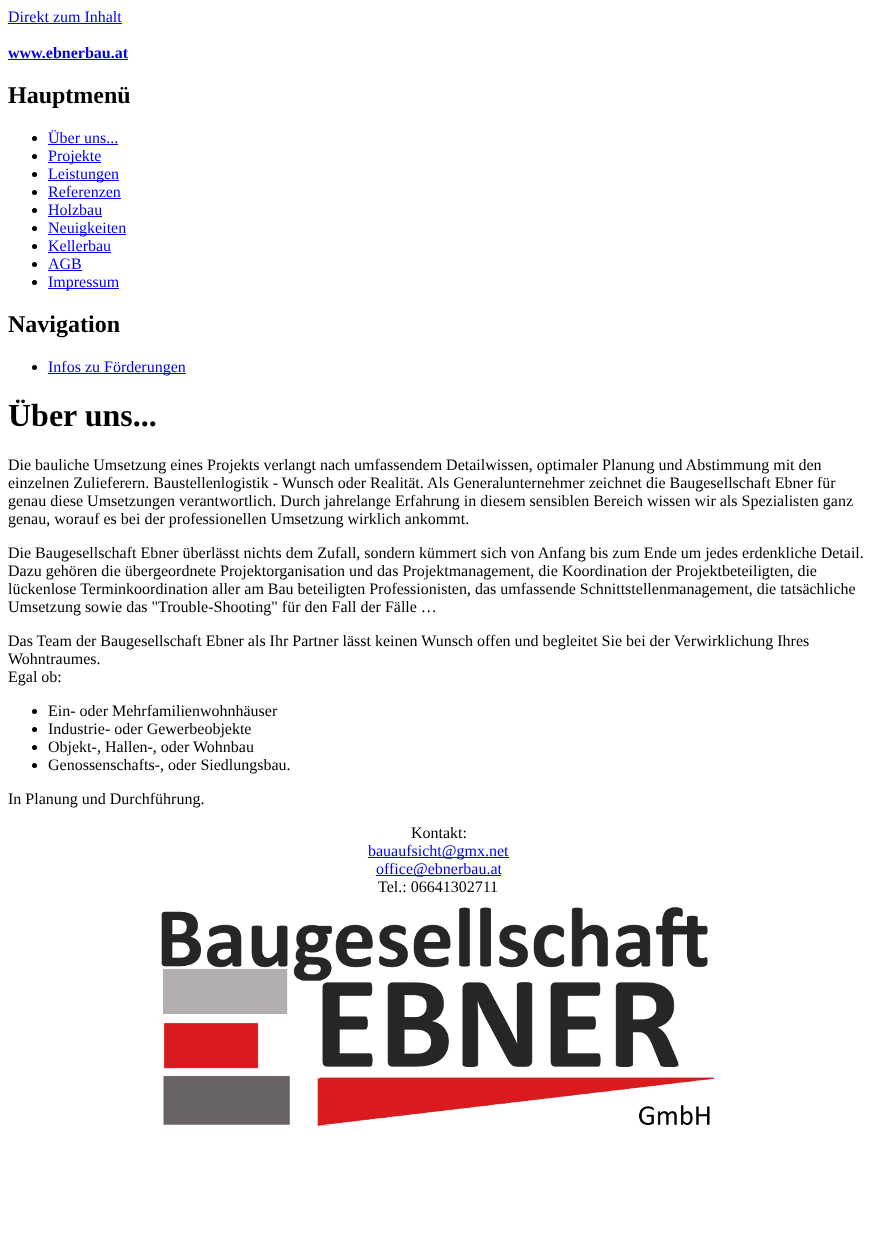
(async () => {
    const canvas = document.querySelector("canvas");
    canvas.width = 877;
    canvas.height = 1243;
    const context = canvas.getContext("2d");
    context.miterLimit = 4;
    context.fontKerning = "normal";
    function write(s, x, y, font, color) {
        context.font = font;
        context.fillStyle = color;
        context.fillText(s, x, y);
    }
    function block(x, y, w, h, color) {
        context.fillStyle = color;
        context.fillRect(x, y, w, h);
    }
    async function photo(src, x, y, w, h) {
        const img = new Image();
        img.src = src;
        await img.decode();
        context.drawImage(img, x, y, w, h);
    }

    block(0, 0, 877, 1243, "rgb(255, 255, 255)");
    write("Direkt zum Inhalt", 8, 22, "16px Liberation Serif", "rgb(0, 0, 238)");
    block(8, 23, 114, 1, "rgb(0, 0, 238)");
    write("www.ebnerbau.at", 8, 58, "bold 16px Liberation Serif", "rgb(0, 0, 238)");
    block(8, 59, 120, 1, "rgb(0, 0, 238)");
    write("Hauptmenü", 8, 103, "bold 24px Liberation Serif", "rgb(0, 0, 0)");
    context.beginPath();
    context.arc(34.5, 138.5, 2.5, 0, Math.PI * 2);
    context.fill();
    write("Über uns...", 48, 143, "16px Liberation Serif", "rgb(0, 0, 238)");
    block(48, 144, 70, 1, "rgb(0, 0, 238)");
    context.fillStyle = "rgb(0, 0, 0)";
    context.beginPath();
    context.arc(34.5, 156.5, 2.5, 0, Math.PI * 2);
    context.fill();
    block(48, 162, 53, 1, "rgb(0, 0, 238)");
    write("Projekte", 48, 161, "16px Liberation Serif", "rgb(0, 0, 238)");
    context.fillStyle = "rgb(0, 0, 0)";
    context.beginPath();
    context.arc(34.5, 174.5, 2.5, 0, Math.PI * 2);
    context.fill();
    block(48, 180, 71, 1, "rgb(0, 0, 238)");
    write("Leistungen", 48, 179, "16px Liberation Serif", "rgb(0, 0, 238)");
    context.fillStyle = "rgb(0, 0, 0)";
    context.beginPath();
    context.arc(34.5, 192.5, 2.5, 0, Math.PI * 2);
    context.fill();
    write("Referenzen", 48, 197, "16px Liberation Serif", "rgb(0, 0, 238)");
    block(48, 198, 73, 1, "rgb(0, 0, 238)");
    context.fillStyle = "rgb(0, 0, 0)";
    context.beginPath();
    context.arc(34.5, 210.5, 2.5, 0, Math.PI * 2);
    context.fill();
    write("Holzbau", 48, 215, "16px Liberation Serif", "rgb(0, 0, 238)");
    block(48, 216, 54, 1, "rgb(0, 0, 238)");
    context.fillStyle = "rgb(0, 0, 0)";
    context.beginPath();
    context.arc(34.5, 228.5, 2.5, 0, Math.PI * 2);
    context.fill();
    block(48, 234, 78, 1, "rgb(0, 0, 238)");
    write("Neuigkeiten", 48, 233, "16px Liberation Serif", "rgb(0, 0, 238)");
    context.fillStyle = "rgb(0, 0, 0)";
    context.beginPath();
    context.arc(34.5, 246.5, 2.5, 0, Math.PI * 2);
    context.fill();
    write("Kellerbau", 48, 251, "16px Liberation Serif", "rgb(0, 0, 238)");
    block(48, 252, 63, 1, "rgb(0, 0, 238)");
    context.fillStyle = "rgb(0, 0, 0)";
    context.beginPath();
    context.arc(34.5, 264.5, 2.5, 0, Math.PI * 2);
    context.fill();
    write("AGB", 48, 269, "16px Liberation Serif", "rgb(0, 0, 238)");
    block(48, 270, 34, 1, "rgb(0, 0, 238)");
    context.fillStyle = "rgb(0, 0, 0)";
    context.beginPath();
    context.arc(34.5, 282.5, 2.5, 0, Math.PI * 2);
    context.fill();
    block(48, 288, 71, 1, "rgb(0, 0, 238)");
    write("Impressum", 48, 287, "16px Liberation Serif", "rgb(0, 0, 238)");
    write("Navigation", 8, 332, "bold 24px Liberation Serif", "rgb(0, 0, 0)");
    context.beginPath();
    context.arc(34.5, 367.5, 2.5, 0, Math.PI * 2);
    context.fill();
    block(48, 373, 138, 1, "rgb(0, 0, 238)");
    write("Infos zu Förderungen", 48, 372, "16px Liberation Serif", "rgb(0, 0, 238)");
    write("Über uns...", 8, 426, "bold 32px Liberation Serif", "rgb(0, 0, 0)");
    write("Die bauliche Umsetzung eines Projekts verlangt nach umfassendem Detailwissen, optimaler Planung und Abstimmung mit den", 8, 470, "16px Liberation Serif", "rgb(0, 0, 0)");
    write("einzelnen Zulieferern. Baustellenlogistik - Wunsch oder Realität. Als Generalunternehmer zeichnet die Baugesellschaft Ebner für", 8, 488, "16px Liberation Serif", "rgb(0, 0, 0)");
    write("genau diese Umsetzungen verantwortlich. Durch jahrelange Erfahrung in diesem sensiblen Bereich wissen wir als Spezialisten ganz", 8, 506, "16px Liberation Serif", "rgb(0, 0, 0)");
    write("genau, worauf es bei der professionellen Umsetzung wirklich ankommt.", 8, 524, "16px Liberation Serif", "rgb(0, 0, 0)");
    write("Die Baugesellschaft Ebner überlässt nichts dem Zufall, sondern kümmert sich von Anfang bis zum Ende um jedes erdenkliche Detail.", 8, 558, "16px Liberation Serif", "rgb(0, 0, 0)");
    write("Dazu gehören die übergeordnete Projektorganisation und das Projektmanagement, die Koordination der Projektbeteiligten, die", 8, 576, "16px Liberation Serif", "rgb(0, 0, 0)");
    write("lückenlose Terminkoordination aller am Bau beteiligten Professionisten, das umfassende Schnittstellenmanagement, die tatsächliche", 8, 594, "16px Liberation Serif", "rgb(0, 0, 0)");
    write("Umsetzung sowie das \"Trouble-Shooting\" für den Fall der Fälle …", 8, 612, "16px Liberation Serif", "rgb(0, 0, 0)");
    write("Das Team der Baugesellschaft Ebner als Ihr Partner lässt keinen Wunsch offen und begleitet Sie bei der Verwirklichung Ihres", 8, 646, "16px Liberation Serif", "rgb(0, 0, 0)");
    write("Wohntraumes.", 8, 664, "16px Liberation Serif", "rgb(0, 0, 0)");
    write("Egal ob:", 8, 682, "16px Liberation Serif", "rgb(0, 0, 0)");
    context.beginPath();
    context.arc(34.5, 711.5, 2.5, 0, Math.PI * 2);
    context.fill();
    write("Ein- oder Mehrfamilienwohnhäuser", 48, 716, "16px Liberation Serif", "rgb(0, 0, 0)");
    context.beginPath();
    context.arc(34.5, 729.5, 2.5, 0, Math.PI * 2);
    context.fill();
    write("Industrie- oder Gewerbeobjekte", 48, 734, "16px Liberation Serif", "rgb(0, 0, 0)");
    context.beginPath();
    context.arc(34.5, 747.5, 2.5, 0, Math.PI * 2);
    context.fill();
    write("Objekt-, Hallen-, oder Wohnbau", 48, 752, "16px Liberation Serif", "rgb(0, 0, 0)");
    context.beginPath();
    context.arc(34.5, 765.5, 2.5, 0, Math.PI * 2);
    context.fill();
    write("Genossenschafts-, oder Siedlungsbau.", 48, 770, "16px Liberation Serif", "rgb(0, 0, 0)");
    write("In Planung und Durchführung.", 8, 804, "16px Liberation Serif", "rgb(0, 0, 0)");
    write("Kontakt:", 411, 838, "16px Liberation Serif", "rgb(0, 0, 0)");
    block(368, 857, 141, 1, "rgb(0, 0, 238)");
    write("bauaufsicht@gmx.net", 368, 856, "16px Liberation Serif", "rgb(0, 0, 238)");
    block(376, 875, 125, 1, "rgb(0, 0, 238)");
    write("office@ebnerbau.at", 376, 874, "16px Liberation Serif", "rgb(0, 0, 238)");
    write("Tel.: 06641302711", 378, 892, "16px Liberation Serif", "rgb(0, 0, 0)");
    await photo("media/1.png", 161, 907, 554, 220);
})();
